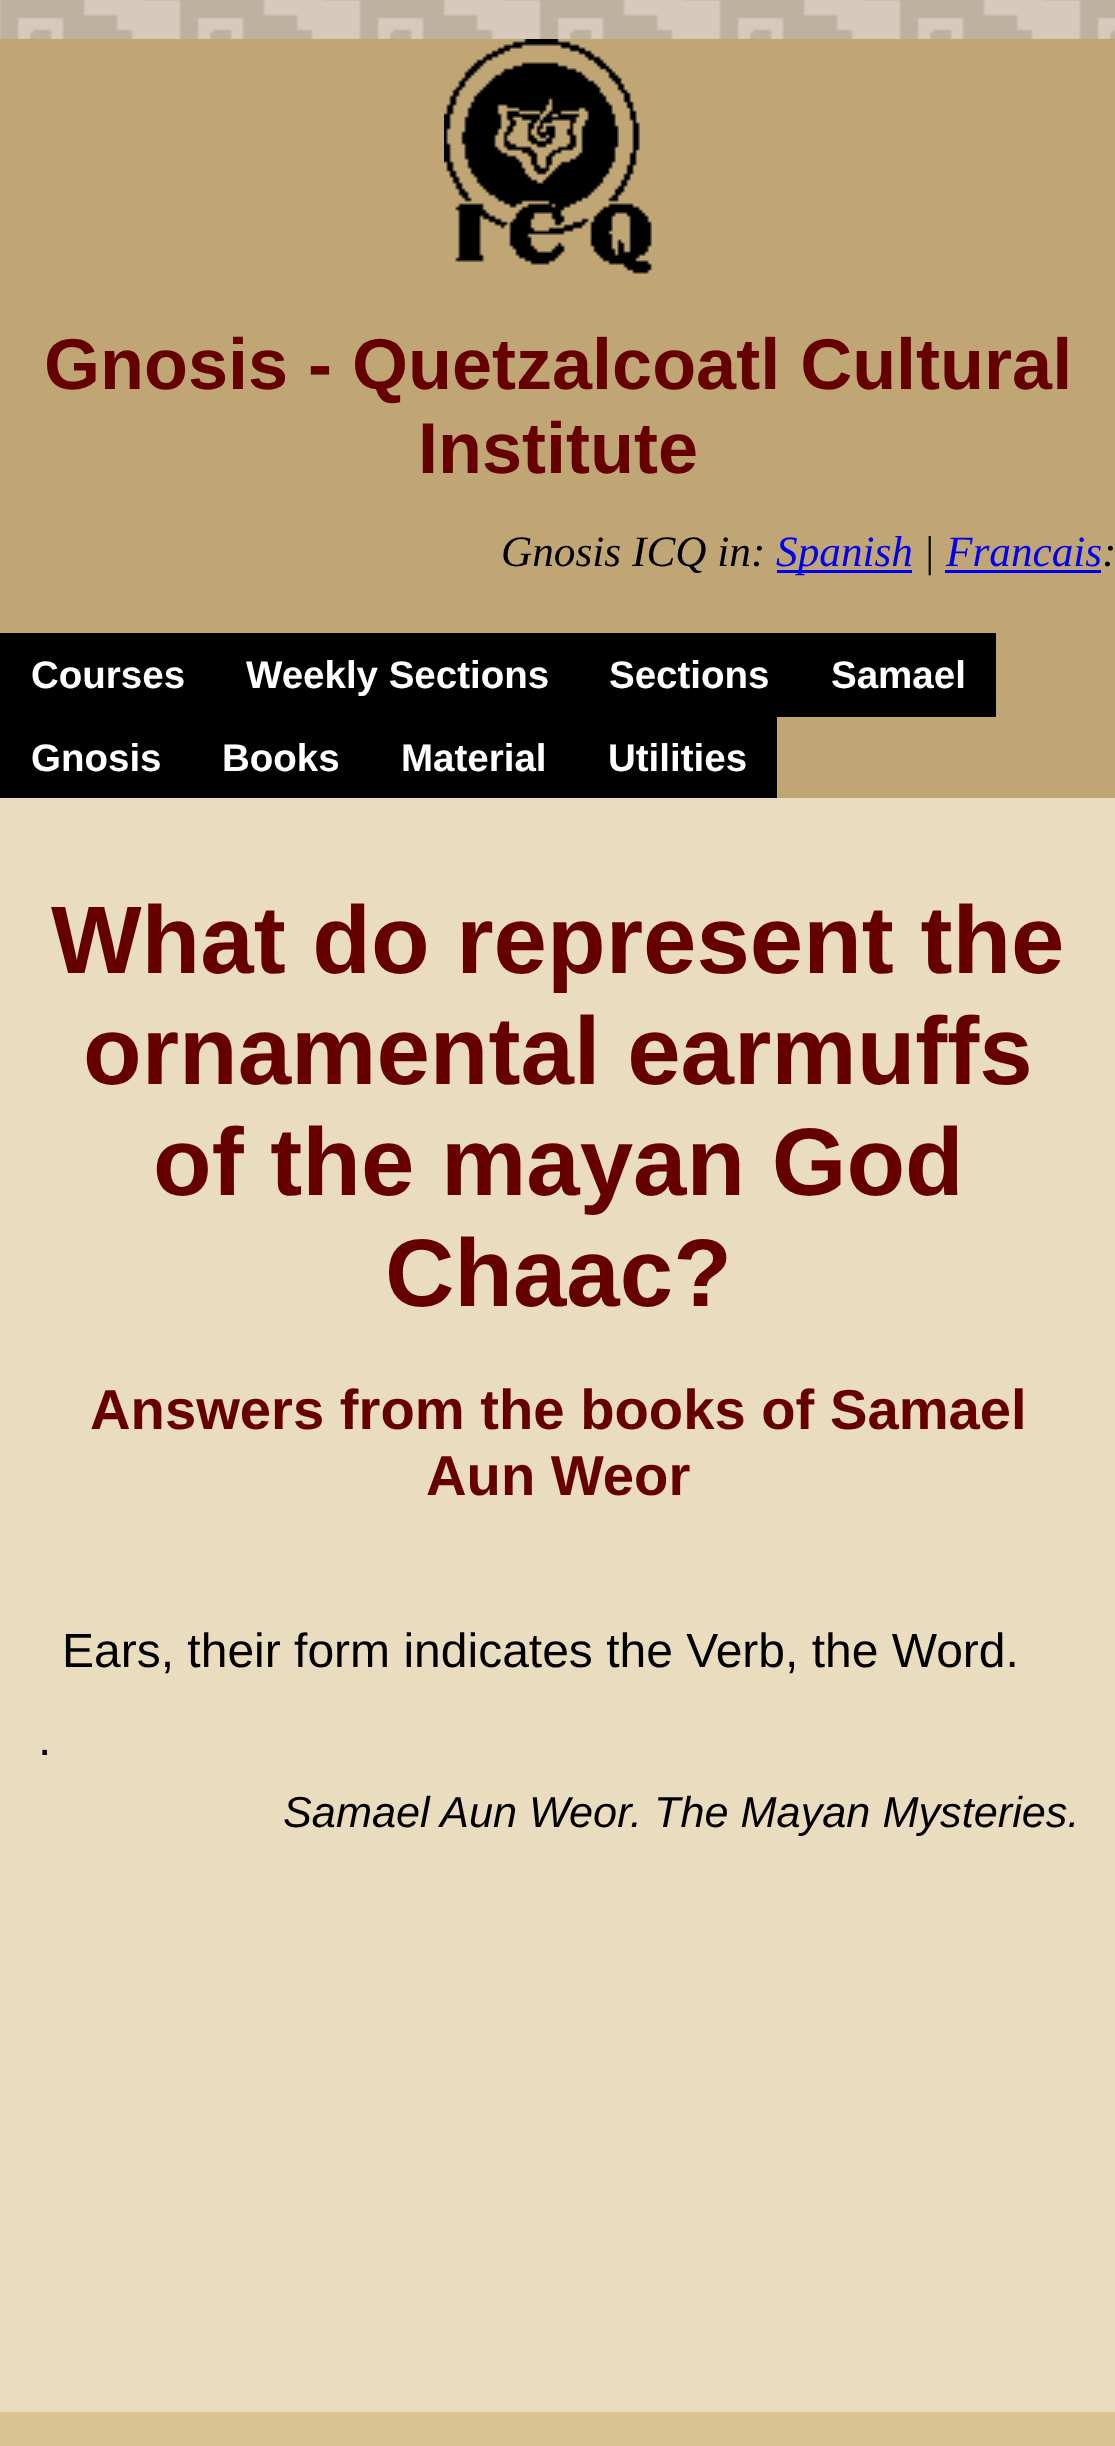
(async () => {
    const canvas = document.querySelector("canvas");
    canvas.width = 1115;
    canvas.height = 2446;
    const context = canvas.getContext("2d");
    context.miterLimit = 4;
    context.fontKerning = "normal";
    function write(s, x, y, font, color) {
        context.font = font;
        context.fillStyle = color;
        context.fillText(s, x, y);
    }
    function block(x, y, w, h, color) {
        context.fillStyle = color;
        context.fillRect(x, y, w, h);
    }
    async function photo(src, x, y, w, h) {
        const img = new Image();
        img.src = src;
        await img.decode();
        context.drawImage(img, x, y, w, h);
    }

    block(0, 0, 1115, 2446, "rgb(215, 201, 187)");
    await photo("media/1.png", 0, 0, 1115, 39);
    block(0, 39, 1115, 759, "rgb(192, 166, 116)");
    await photo("media/2.png", 444, 39, 208, 235);
    write("Gnosis - Quetzalcoatl Cultural", 44, 389, "bold 72px Liberation Sans", "rgb(102, 0, 0)");
    write("Institute", 418, 473, "bold 72px Liberation Sans", "rgb(102, 0, 0)");
    write("Gnosis ICQ in:", 501, 566, "italic 43.25px Liberation Serif", "rgb(0, 0, 0)");
    block(777, 570, 135, 3, "rgb(0, 0, 238)");
    write("Spanish", 776, 566, "italic 43.25px Liberation Serif", "rgb(0, 0, 238)");
    write("|", 923, 566, "italic 43.25px Liberation Serif", "rgb(0, 0, 0)");
    write("Francais", 946, 566, "italic 43.25px Liberation Serif", "rgb(0, 0, 238)");
    block(945, 570, 156, 3, "rgb(0, 0, 238)");
    write(":", 1102, 566, "italic 43.25px Liberation Serif", "rgb(0, 0, 0)");
    block(0, 633, 996, 84, "rgb(0, 0, 0)");
    write("Courses", 31, 688, "bold 38.5px Liberation Sans", "rgb(255, 255, 255)");
    write("Weekly Sections", 246, 688, "bold 38.5px Liberation Sans", "rgb(255, 255, 255)");
    write("Sections", 609, 688, "bold 38.5px Liberation Sans", "rgb(255, 255, 255)");
    write("Samael", 831, 688, "bold 38.5px Liberation Sans", "rgb(255, 255, 255)");
    block(0, 717, 777, 81, "rgb(0, 0, 0)");
    write("Gnosis", 31, 771, "bold 38.5px Liberation Sans", "rgb(255, 255, 255)");
    write("Books", 222, 771, "bold 38.5px Liberation Sans", "rgb(255, 255, 255)");
    write("Material", 401, 771, "bold 38.5px Liberation Sans", "rgb(255, 255, 255)");
    write("Utilities", 608, 771, "bold 38.5px Liberation Sans", "rgb(255, 255, 255)");
    block(0, 798, 1115, 1614, "rgb(234, 220, 191)");
    write("What do represent the", 51, 973, "bold 96px Liberation Sans", "rgb(102, 0, 0)");
    write("ornamental earmuffs", 83, 1084, "bold 96px Liberation Sans", "rgb(102, 0, 0)");
    write("of the mayan God", 153, 1195, "bold 96px Liberation Sans", "rgb(102, 0, 0)");
    write("Chaac?", 385, 1306, "bold 96px Liberation Sans", "rgb(102, 0, 0)");
    write("Answers from the books of Samael", 90, 1429, "bold 56.2px Liberation Sans", "rgb(102, 0, 0)");
    write("Aun Weor", 426, 1495, "bold 56.2px Liberation Sans", "rgb(102, 0, 0)");
    write("Ears, their form indicates the Verb, the Word.", 62, 1667, "48px Liberation Sans", "rgb(0, 0, 0)");
    write(".", 38, 1755, "48px Liberation Sans", "rgb(0, 0, 0)");
    write("Samael Aun Weor. The Mayan Mysteries.", 283, 1827, "italic 43.25px Liberation Sans", "rgb(0, 0, 0)");
    block(0, 2412, 1115, 34, "rgb(219, 196, 147)");
})();
